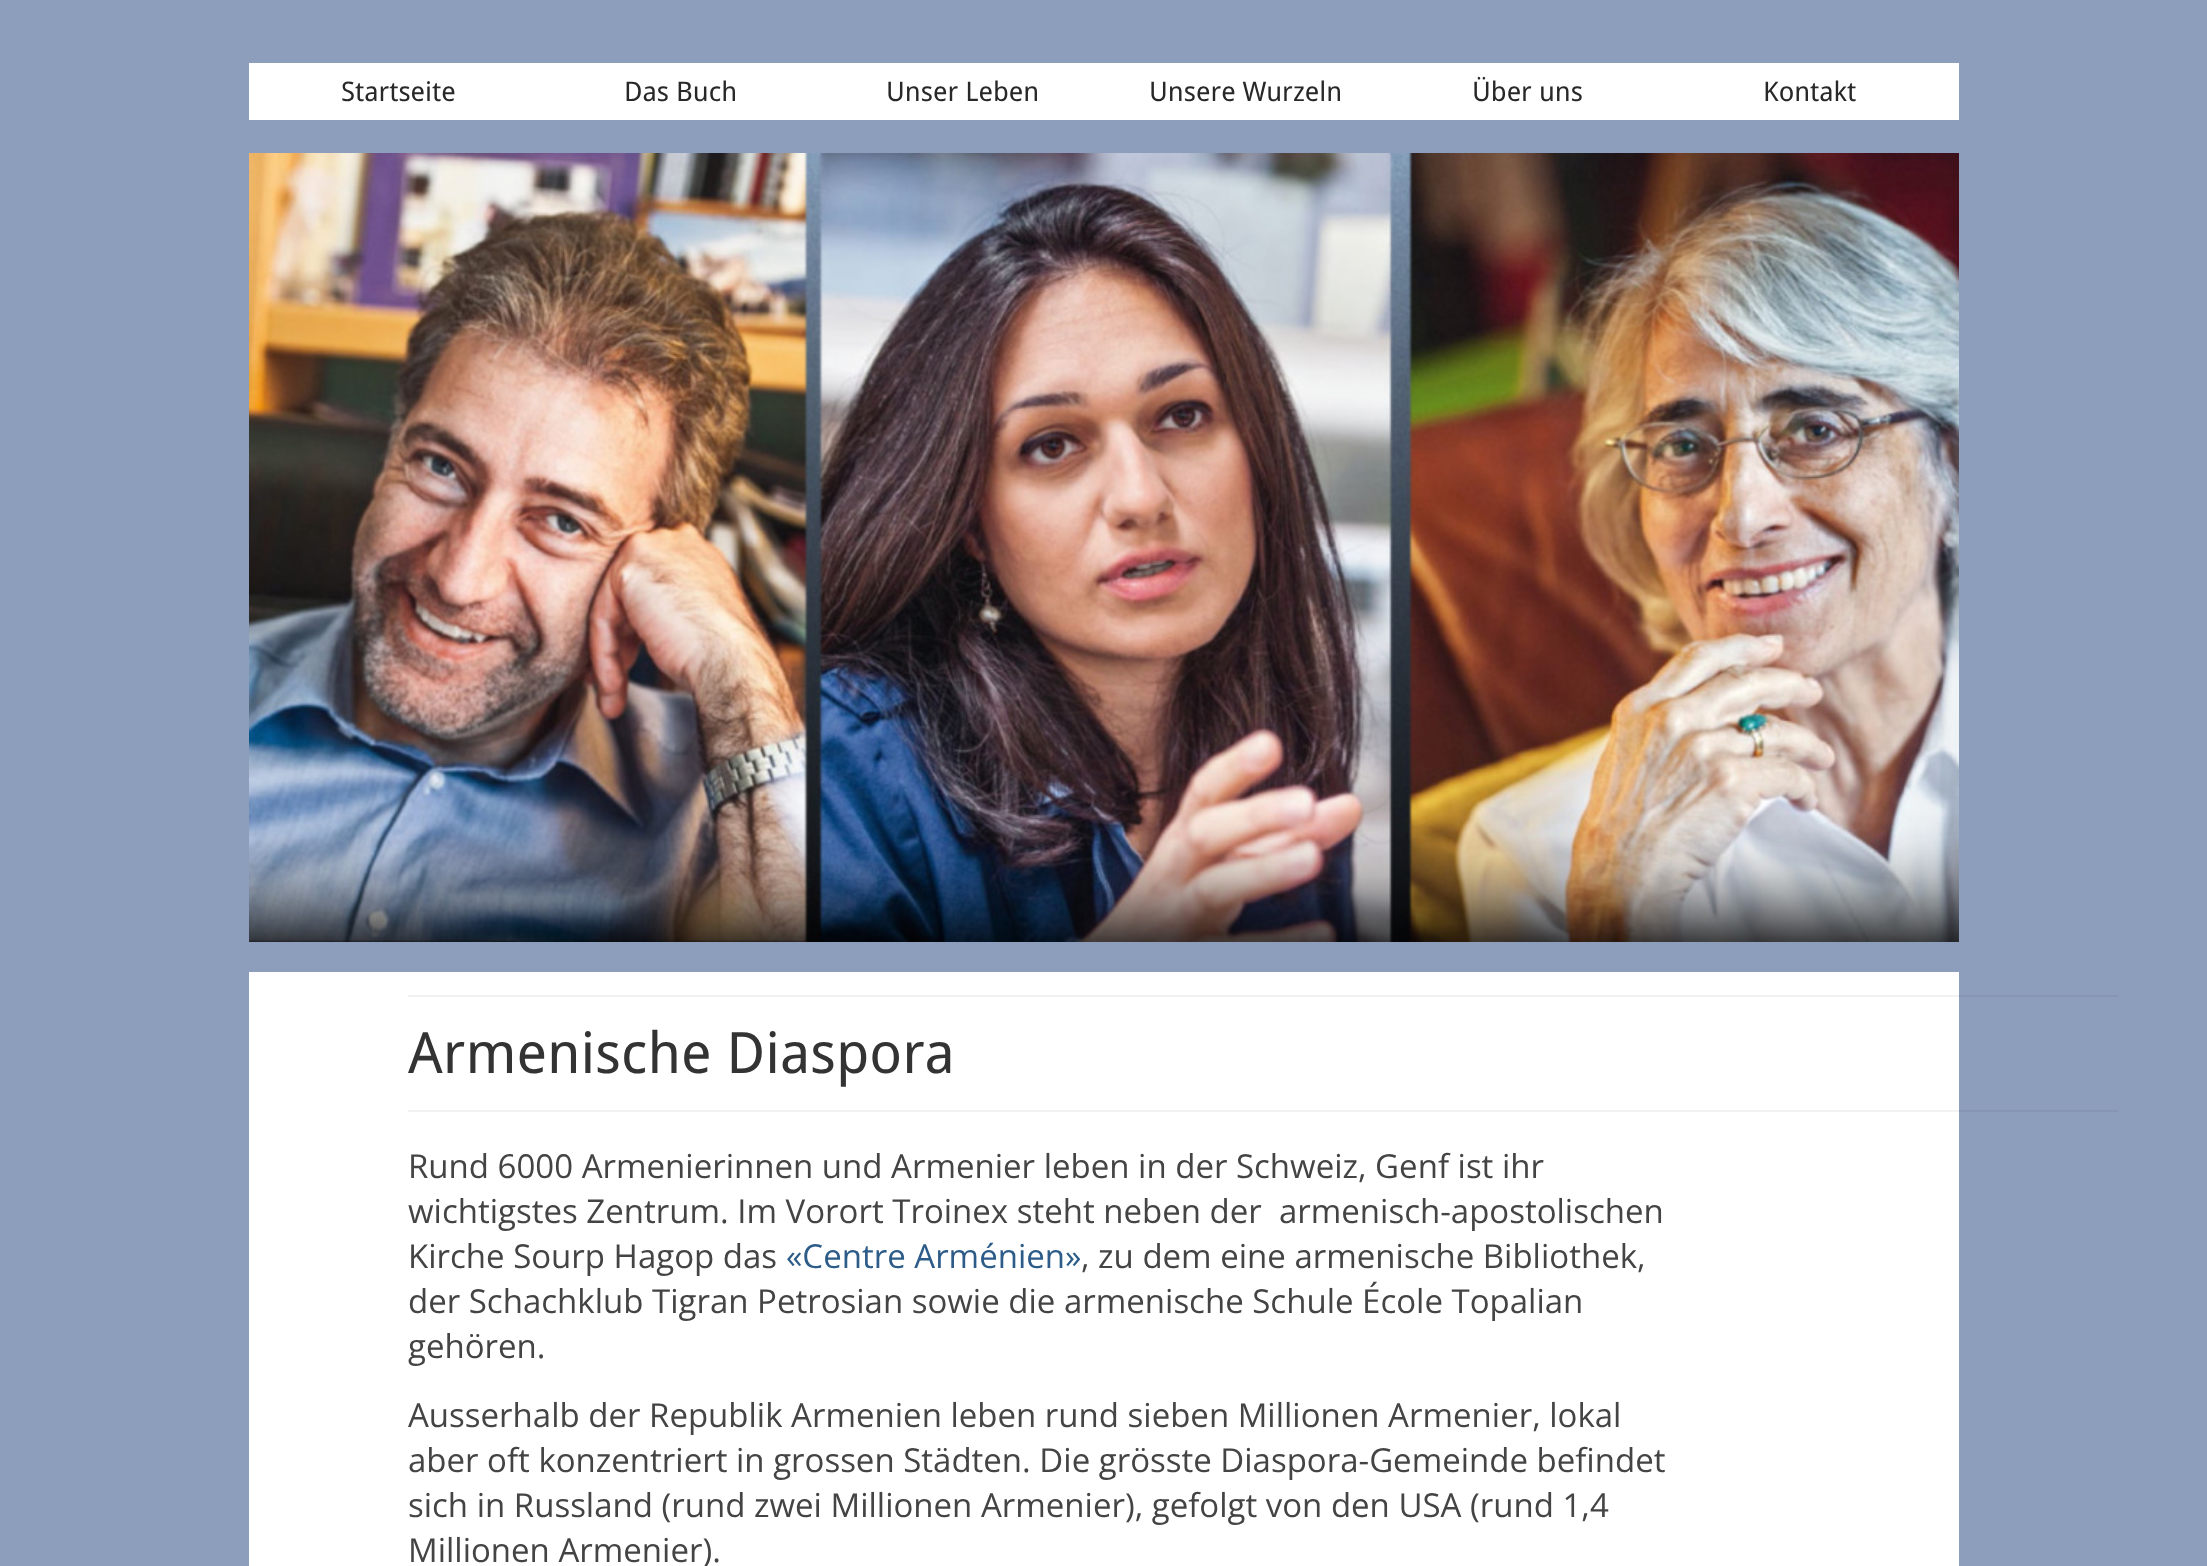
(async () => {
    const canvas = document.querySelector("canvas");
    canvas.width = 2207;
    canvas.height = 1566;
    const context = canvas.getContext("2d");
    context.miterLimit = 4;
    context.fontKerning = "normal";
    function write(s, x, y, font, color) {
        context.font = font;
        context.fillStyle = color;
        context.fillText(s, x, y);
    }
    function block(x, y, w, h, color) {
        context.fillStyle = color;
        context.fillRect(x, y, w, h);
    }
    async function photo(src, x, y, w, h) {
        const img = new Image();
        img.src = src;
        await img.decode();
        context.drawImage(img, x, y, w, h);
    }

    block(0, 0, 2207, 1566, "rgb(141, 157, 188)");
    block(1959, 1110, 159, 2, "rgb(134, 149, 179)");
    block(1959, 995, 159, 2, "rgb(134, 149, 179)");
    block(249, 63, 1710, 57, "rgb(255, 255, 255)");
    write("Startseite", 341, 101, "27px Droid Sans", "rgb(40, 40, 40)");
    write("Das Buch", 624, 101, "27px Droid Sans", "rgb(40, 40, 40)");
    write("Unser Leben", 886, 101, "27px Droid Sans", "rgb(40, 40, 40)");
    write("Unsere Wurzeln", 1149, 101, "27px Droid Sans", "rgb(40, 40, 40)");
    write("Über uns", 1472, 101, "27px Droid Sans", "rgb(40, 40, 40)");
    write("Kontakt", 1763, 101, "27px Droid Sans", "rgb(40, 40, 40)");
    await photo("media/1.png", 249, 153, 1710, 789);
    block(249, 972, 1710, 594, "rgb(255, 255, 255)");
    block(408, 1110, 1551, 2, "rgb(242, 242, 242)");
    block(408, 995, 1551, 2, "rgb(242, 242, 242)");
    write("Armenische Diaspora", 408, 1073, "57px Droid Sans", "rgb(51, 51, 51)");
    write("Rund 6000 Armenierinnen und Armenier leben in der Schweiz, Genf ist ihr", 408, 1178, "33px Open Sans", "rgb(68, 68, 68)");
    write("wichtigstes Zentrum. Im Vorort Troinex steht neben der  armenisch-apostolischen", 408, 1223, "33px Open Sans", "rgb(68, 68, 68)");
    write("Kirche Sourp Hagop das", 408, 1268, "33px Open Sans", "rgb(68, 68, 68)");
    write("«Centre Arménien»", 786, 1268, "33px Open Sans", "rgb(45, 92, 136)");
    write(", zu dem eine armenische Bibliothek,", 1081, 1268, "33px Open Sans", "rgb(68, 68, 68)");
    write("der Schachklub Tigran Petrosian sowie die armenische Schule École Topalian", 408, 1313, "33px Open Sans", "rgb(68, 68, 68)");
    write("gehören.", 408, 1358, "33px Open Sans", "rgb(68, 68, 68)");
    write("Ausserhalb der Republik Armenien leben rund sieben Millionen Armenier, lokal", 408, 1427, "33px Open Sans", "rgb(68, 68, 68)");
    write("aber oft konzentriert in grossen Städten. Die grösste Diaspora-Gemeinde befindet", 408, 1472, "33px Open Sans", "rgb(68, 68, 68)");
    write("sich in Russland (rund zwei Millionen Armenier), gefolgt von den USA (rund 1,4", 408, 1517, "33px Open Sans", "rgb(68, 68, 68)");
    write("Millionen Armenier).", 408, 1562, "33px Open Sans", "rgb(68, 68, 68)");
})();
